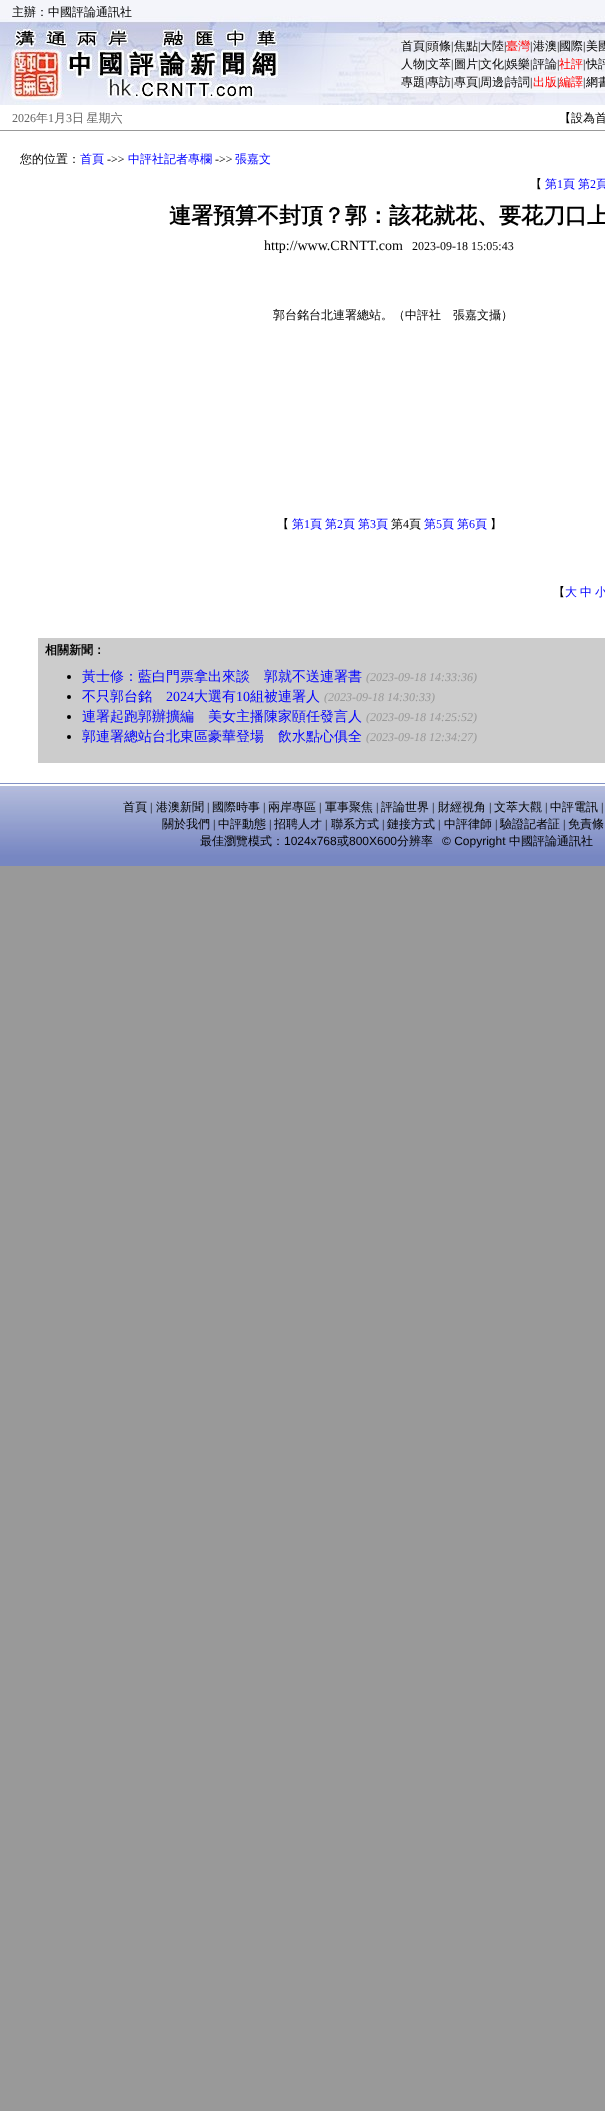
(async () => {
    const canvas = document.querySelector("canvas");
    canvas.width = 605;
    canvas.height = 2111;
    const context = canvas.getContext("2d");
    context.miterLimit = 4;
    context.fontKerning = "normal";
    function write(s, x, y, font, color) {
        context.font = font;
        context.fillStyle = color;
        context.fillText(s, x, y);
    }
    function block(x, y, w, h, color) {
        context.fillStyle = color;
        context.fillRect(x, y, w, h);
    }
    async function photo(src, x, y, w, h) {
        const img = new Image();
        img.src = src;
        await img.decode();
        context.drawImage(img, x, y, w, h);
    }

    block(0, 0, 605, 2111, "rgb(153, 153, 153)");
    await photo("media/1.png", 0, 0, 605, 105);
    write("主辦：中國評論通訊社", 12, 16, "500 12px WenQuanYi Zen Hei", "rgb(0, 0, 0)");
    write("首頁", 401, 50, "500 12px WenQuanYi Zen Hei", "rgb(0, 0, 0)");
    write("|", 425, 50, "12px Liberation Serif", "rgb(0, 0, 0)");
    write("頭條", 427, 50, "500 12px WenQuanYi Zen Hei", "rgb(0, 0, 0)");
    write("|", 451, 50, "12px Liberation Serif", "rgb(0, 0, 0)");
    write("焦點", 454, 50, "500 12px WenQuanYi Zen Hei", "rgb(0, 0, 0)");
    write("|", 478, 50, "12px Liberation Serif", "rgb(0, 0, 0)");
    write("大陸", 480, 50, "500 12px WenQuanYi Zen Hei", "rgb(0, 0, 0)");
    write("|", 504, 50, "12px Liberation Serif", "rgb(0, 0, 0)");
    write("臺灣", 506, 50, "500 12px WenQuanYi Zen Hei", "rgb(255, 0, 0)");
    write("|", 530, 50, "12px Liberation Serif", "rgb(0, 0, 0)");
    write("港澳", 533, 50, "500 12px WenQuanYi Zen Hei", "rgb(0, 0, 0)");
    write("|", 557, 50, "12px Liberation Serif", "rgb(0, 0, 0)");
    write("國際", 559, 50, "500 12px WenQuanYi Zen Hei", "rgb(0, 0, 0)");
    write("|", 583, 50, "12px Liberation Serif", "rgb(0, 0, 0)");
    write("美國", 586, 50, "500 12px WenQuanYi Zen Hei", "rgb(0, 0, 0)");
    write("人物", 401, 68, "500 12px WenQuanYi Zen Hei", "rgb(0, 0, 0)");
    write("|", 425, 68, "12px Liberation Serif", "rgb(0, 0, 0)");
    write("文萃", 427, 68, "500 12px WenQuanYi Zen Hei", "rgb(0, 0, 0)");
    write("|", 451, 68, "12px Liberation Serif", "rgb(0, 0, 0)");
    write("圖片", 454, 68, "500 12px WenQuanYi Zen Hei", "rgb(0, 0, 0)");
    write("|", 478, 68, "12px Liberation Serif", "rgb(0, 0, 0)");
    write("文化", 480, 68, "500 12px WenQuanYi Zen Hei", "rgb(0, 0, 0)");
    write("|", 504, 68, "12px Liberation Serif", "rgb(0, 0, 0)");
    write("娛樂", 506, 68, "500 12px WenQuanYi Zen Hei", "rgb(0, 0, 0)");
    write("|", 530, 68, "12px Liberation Serif", "rgb(0, 0, 0)");
    write("評論", 533, 68, "500 12px WenQuanYi Zen Hei", "rgb(0, 0, 0)");
    write("|", 557, 68, "12px Liberation Serif", "rgb(0, 0, 0)");
    write("社評", 559, 68, "500 12px WenQuanYi Zen Hei", "rgb(255, 0, 0)");
    write("|", 583, 68, "12px Liberation Serif", "rgb(0, 0, 0)");
    write("快評", 586, 68, "500 12px WenQuanYi Zen Hei", "rgb(0, 0, 0)");
    write("專題", 401, 86, "500 12px WenQuanYi Zen Hei", "rgb(0, 0, 0)");
    write("|", 425, 86, "12px Liberation Serif", "rgb(0, 0, 0)");
    write("專訪", 427, 86, "500 12px WenQuanYi Zen Hei", "rgb(0, 0, 0)");
    write("|", 451, 86, "12px Liberation Serif", "rgb(0, 0, 0)");
    write("專頁", 454, 86, "500 12px WenQuanYi Zen Hei", "rgb(0, 0, 0)");
    write("|", 478, 86, "12px Liberation Serif", "rgb(0, 0, 0)");
    write("周邊", 480, 86, "500 12px WenQuanYi Zen Hei", "rgb(0, 0, 0)");
    write("|", 504, 86, "12px Liberation Serif", "rgb(0, 0, 0)");
    write("詩詞", 506, 86, "500 12px WenQuanYi Zen Hei", "rgb(0, 0, 0)");
    write("|", 530, 86, "12px Liberation Serif", "rgb(0, 0, 0)");
    write("出版", 533, 86, "500 12px WenQuanYi Zen Hei", "rgb(255, 0, 0)");
    write("|", 557, 86, "12px Liberation Serif", "rgb(0, 0, 0)");
    write("編譯", 559, 86, "500 12px WenQuanYi Zen Hei", "rgb(255, 0, 0)");
    write("|", 583, 86, "12px Liberation Serif", "rgb(0, 0, 0)");
    write("網書", 586, 86, "500 12px WenQuanYi Zen Hei", "rgb(0, 0, 0)");
    block(0, 105, 605, 25, "rgb(255, 255, 255)");
    write("2026", 12, 122, "12px Liberation Serif", "rgb(102, 102, 102)");
    write("年", 36, 122, "500 12px WenQuanYi Zen Hei", "rgb(102, 102, 102)");
    write("1", 48, 122, "12px Liberation Serif", "rgb(102, 102, 102)");
    write("月", 54, 122, "500 12px WenQuanYi Zen Hei", "rgb(102, 102, 102)");
    write("3", 66, 122, "12px Liberation Serif", "rgb(102, 102, 102)");
    context.wordSpacing = "-1px";
    write("日 星期六", 72, 122, "500 12px WenQuanYi Zen Hei", "rgb(102, 102, 102)");
    context.wordSpacing = "0px";
    write("【設為首", 559, 122, "500 12px WenQuanYi Zen Hei", "rgb(0, 0, 0)");
    block(0, 131, 605, 652, "rgb(255, 255, 255)");
    write("您的位置：", 20, 163, "500 12px WenQuanYi Zen Hei", "rgb(0, 0, 0)");
    write("首頁", 80, 163, "500 12px WenQuanYi Zen Hei", "rgb(0, 0, 255)");
    write("->>", 107, 163, "12px Liberation Serif", "rgb(0, 0, 0)");
    write("中評社記者專欄", 128, 163, "500 12px WenQuanYi Zen Hei", "rgb(0, 0, 255)");
    write("->>", 215, 163, "12px Liberation Serif", "rgb(0, 0, 0)");
    write("張嘉文", 235, 163, "500 12px WenQuanYi Zen Hei", "rgb(0, 0, 255)");
    write("【", 530, 188, "500 12px WenQuanYi Zen Hei", "rgb(0, 0, 0)");
    write("第", 545, 188, "500 12px WenQuanYi Zen Hei", "rgb(0, 0, 255)");
    write("1", 557, 188, "12px Liberation Serif", "rgb(0, 0, 255)");
    write("頁", 563, 188, "500 12px WenQuanYi Zen Hei", "rgb(0, 0, 255)");
    write("第", 578, 188, "500 12px WenQuanYi Zen Hei", "rgb(0, 0, 255)");
    write("2", 590, 188, "12px Liberation Serif", "rgb(0, 0, 255)");
    write("頁", 596, 188, "500 12px WenQuanYi Zen Hei", "rgb(0, 0, 255)");
    write("連署預算不封頂？郭：該花就花、要花刀口上", 169, 223, "bold 22px WenQuanYi Zen Hei", "rgb(0, 0, 0)");
    write("http://www.CRNTT.com", 264, 250, "14px Liberation Serif", "rgb(0, 0, 0)");
    write("2023-09-18 15:05:43", 412, 250, "12px Liberation Serif", "rgb(0, 0, 0)");
    write("郭台銘台北連署總站。（中評社　張嘉文攝）", 273, 319, "500 12px WenQuanYi Zen Hei", "rgb(0, 0, 0)");
    write("【", 277, 528, "500 12px WenQuanYi Zen Hei", "rgb(0, 0, 0)");
    write("第", 292, 528, "500 12px WenQuanYi Zen Hei", "rgb(0, 0, 255)");
    write("1", 304, 528, "12px Liberation Serif", "rgb(0, 0, 255)");
    write("頁", 310, 528, "500 12px WenQuanYi Zen Hei", "rgb(0, 0, 255)");
    write("第", 325, 528, "500 12px WenQuanYi Zen Hei", "rgb(0, 0, 255)");
    write("2", 337, 528, "12px Liberation Serif", "rgb(0, 0, 255)");
    write("頁", 343, 528, "500 12px WenQuanYi Zen Hei", "rgb(0, 0, 255)");
    write("第", 358, 528, "500 12px WenQuanYi Zen Hei", "rgb(0, 0, 255)");
    write("3", 370, 528, "12px Liberation Serif", "rgb(0, 0, 255)");
    write("頁", 376, 528, "500 12px WenQuanYi Zen Hei", "rgb(0, 0, 255)");
    write("第", 391, 528, "500 12px WenQuanYi Zen Hei", "rgb(0, 0, 0)");
    write("4", 403, 528, "12px Liberation Serif", "rgb(0, 0, 0)");
    write("頁", 409, 528, "500 12px WenQuanYi Zen Hei", "rgb(0, 0, 0)");
    write("第", 424, 528, "500 12px WenQuanYi Zen Hei", "rgb(0, 0, 255)");
    write("5", 436, 528, "12px Liberation Serif", "rgb(0, 0, 255)");
    write("頁", 442, 528, "500 12px WenQuanYi Zen Hei", "rgb(0, 0, 255)");
    write("第", 457, 528, "500 12px WenQuanYi Zen Hei", "rgb(0, 0, 255)");
    write("6", 469, 528, "12px Liberation Serif", "rgb(0, 0, 255)");
    write("頁", 475, 528, "500 12px WenQuanYi Zen Hei", "rgb(0, 0, 255)");
    write("】", 490, 528, "500 12px WenQuanYi Zen Hei", "rgb(0, 0, 0)");
    write("【", 553, 596, "500 12px WenQuanYi Zen Hei", "rgb(0, 0, 0)");
    write("大", 565, 596, "500 12px WenQuanYi Zen Hei", "rgb(0, 0, 255)");
    write("中", 580, 596, "500 12px WenQuanYi Zen Hei", "rgb(0, 0, 255)");
    write("小", 595, 596, "500 12px WenQuanYi Zen Hei", "rgb(0, 0, 255)");
    block(38, 638, 567, 125, "rgb(204, 204, 204)");
    write("相關新聞：", 45, 654, "bold 12px WenQuanYi Zen Hei", "rgb(0, 0, 0)");
    context.beginPath();
    context.arc(69, 677, 2, 0, Math.PI * 2);
    context.fill();
    write("黃士修：藍白門票拿出來談　郭就不送連署書", 82, 681, "500 14px WenQuanYi Zen Hei", "rgb(0, 0, 255)");
    write("(2023-09-18 14:33:36)", 366, 681, "italic 12px Liberation Serif", "rgb(153, 153, 153)");
    context.fillStyle = "rgb(0, 0, 0)";
    context.beginPath();
    context.arc(69, 697, 2, 0, Math.PI * 2);
    context.fill();
    write("不只郭台銘", 82, 701, "500 14px WenQuanYi Zen Hei", "rgb(0, 0, 255)");
    write("2024", 166, 701, "14px Liberation Serif", "rgb(0, 0, 255)");
    write("大選有", 194, 701, "500 14px WenQuanYi Zen Hei", "rgb(0, 0, 255)");
    write("10", 236, 701, "14px Liberation Serif", "rgb(0, 0, 255)");
    write("組被連署人", 250, 701, "500 14px WenQuanYi Zen Hei", "rgb(0, 0, 255)");
    write("(2023-09-18 14:30:33)", 324, 701, "italic 12px Liberation Serif", "rgb(153, 153, 153)");
    context.fillStyle = "rgb(0, 0, 0)";
    context.beginPath();
    context.arc(69, 717, 2, 0, Math.PI * 2);
    context.fill();
    write("連署起跑郭辦擴編　美女主播陳家頤任發言人", 82, 721, "500 14px WenQuanYi Zen Hei", "rgb(0, 0, 255)");
    write("(2023-09-18 14:25:52)", 366, 721, "italic 12px Liberation Serif", "rgb(153, 153, 153)");
    context.fillStyle = "rgb(0, 0, 0)";
    context.beginPath();
    context.arc(69, 737, 2, 0, Math.PI * 2);
    context.fill();
    write("郭連署總站台北東區豪華登場　飲水點心俱全", 82, 741, "500 14px WenQuanYi Zen Hei", "rgb(0, 0, 255)");
    write("(2023-09-18 12:34:27)", 366, 741, "italic 12px Liberation Serif", "rgb(153, 153, 153)");
    await photo("media/2.png", 0, 783, 605, 83);
    write("首頁", 123, 811, "500 12px WenQuanYi Zen Hei", "rgb(0, 0, 0)");
    write("|", 150, 811, "12px Liberation Serif", "rgb(0, 0, 0)");
    write("港澳新聞", 156, 811, "500 12px WenQuanYi Zen Hei", "rgb(0, 0, 0)");
    write("|", 207, 811, "12px Liberation Serif", "rgb(0, 0, 0)");
    write("國際時事", 212, 811, "500 12px WenQuanYi Zen Hei", "rgb(0, 0, 0)");
    write("|", 263, 811, "12px Liberation Serif", "rgb(0, 0, 0)");
    write("兩岸專區", 268, 811, "500 12px WenQuanYi Zen Hei", "rgb(0, 0, 0)");
    write("|", 319, 811, "12px Liberation Serif", "rgb(0, 0, 0)");
    write("軍事聚焦", 325, 811, "500 12px WenQuanYi Zen Hei", "rgb(0, 0, 0)");
    write("|", 376, 811, "12px Liberation Serif", "rgb(0, 0, 0)");
    write("評論世界", 381, 811, "500 12px WenQuanYi Zen Hei", "rgb(0, 0, 0)");
    write("|", 432, 811, "12px Liberation Serif", "rgb(0, 0, 0)");
    write("財經視角", 438, 811, "500 12px WenQuanYi Zen Hei", "rgb(0, 0, 0)");
    write("|", 489, 811, "12px Liberation Serif", "rgb(0, 0, 0)");
    write("文萃大觀", 494, 811, "500 12px WenQuanYi Zen Hei", "rgb(0, 0, 0)");
    write("|", 545, 811, "12px Liberation Serif", "rgb(0, 0, 0)");
    write("中評電訊", 550, 811, "500 12px WenQuanYi Zen Hei", "rgb(0, 0, 0)");
    write("|", 601, 811, "12px Liberation Serif", "rgb(0, 0, 0)");
    write("關於我們", 162, 828, "500 12px WenQuanYi Zen Hei", "rgb(0, 0, 0)");
    write("|", 213, 828, "12px Liberation Serif", "rgb(0, 0, 0)");
    write("中評動態", 218, 828, "500 12px WenQuanYi Zen Hei", "rgb(0, 0, 0)");
    write("|", 269, 828, "12px Liberation Serif", "rgb(0, 0, 0)");
    write("招聘人才", 274, 828, "500 12px WenQuanYi Zen Hei", "rgb(0, 0, 0)");
    write("|", 325, 828, "12px Liberation Serif", "rgb(0, 0, 0)");
    write("聯系方式", 331, 828, "500 12px WenQuanYi Zen Hei", "rgb(0, 0, 0)");
    write("|", 382, 828, "12px Liberation Serif", "rgb(0, 0, 0)");
    write("鏈接方式", 387, 828, "500 12px WenQuanYi Zen Hei", "rgb(0, 0, 0)");
    write("|", 438, 828, "12px Liberation Serif", "rgb(0, 0, 0)");
    write("中評律師", 444, 828, "500 12px WenQuanYi Zen Hei", "rgb(0, 0, 0)");
    write("|", 495, 828, "12px Liberation Serif", "rgb(0, 0, 0)");
    write("驗證記者証", 500, 828, "500 12px WenQuanYi Zen Hei", "rgb(0, 0, 0)");
    write("|", 563, 828, "12px Liberation Serif", "rgb(0, 0, 0)");
    write("免責條", 568, 828, "500 12px WenQuanYi Zen Hei", "rgb(0, 0, 0)");
    write("最佳瀏覽模式：", 200, 845, "500 12px WenQuanYi Zen Hei", "rgb(0, 0, 0)");
    write("1024x768", 284, 845, "12px Liberation Sans", "rgb(0, 0, 0)");
    write("或", 337, 845, "500 12px WenQuanYi Zen Hei", "rgb(0, 0, 0)");
    write("800X600", 349, 845, "12px Liberation Sans", "rgb(0, 0, 0)");
    write("分辨率", 397, 845, "500 12px WenQuanYi Zen Hei", "rgb(0, 0, 0)");
    write("© Copyright", 442, 845, "12px Liberation Sans", "rgb(0, 0, 0)");
    write("中國評論通訊社", 509, 845, "500 12px WenQuanYi Zen Hei", "rgb(0, 0, 0)");
})();
